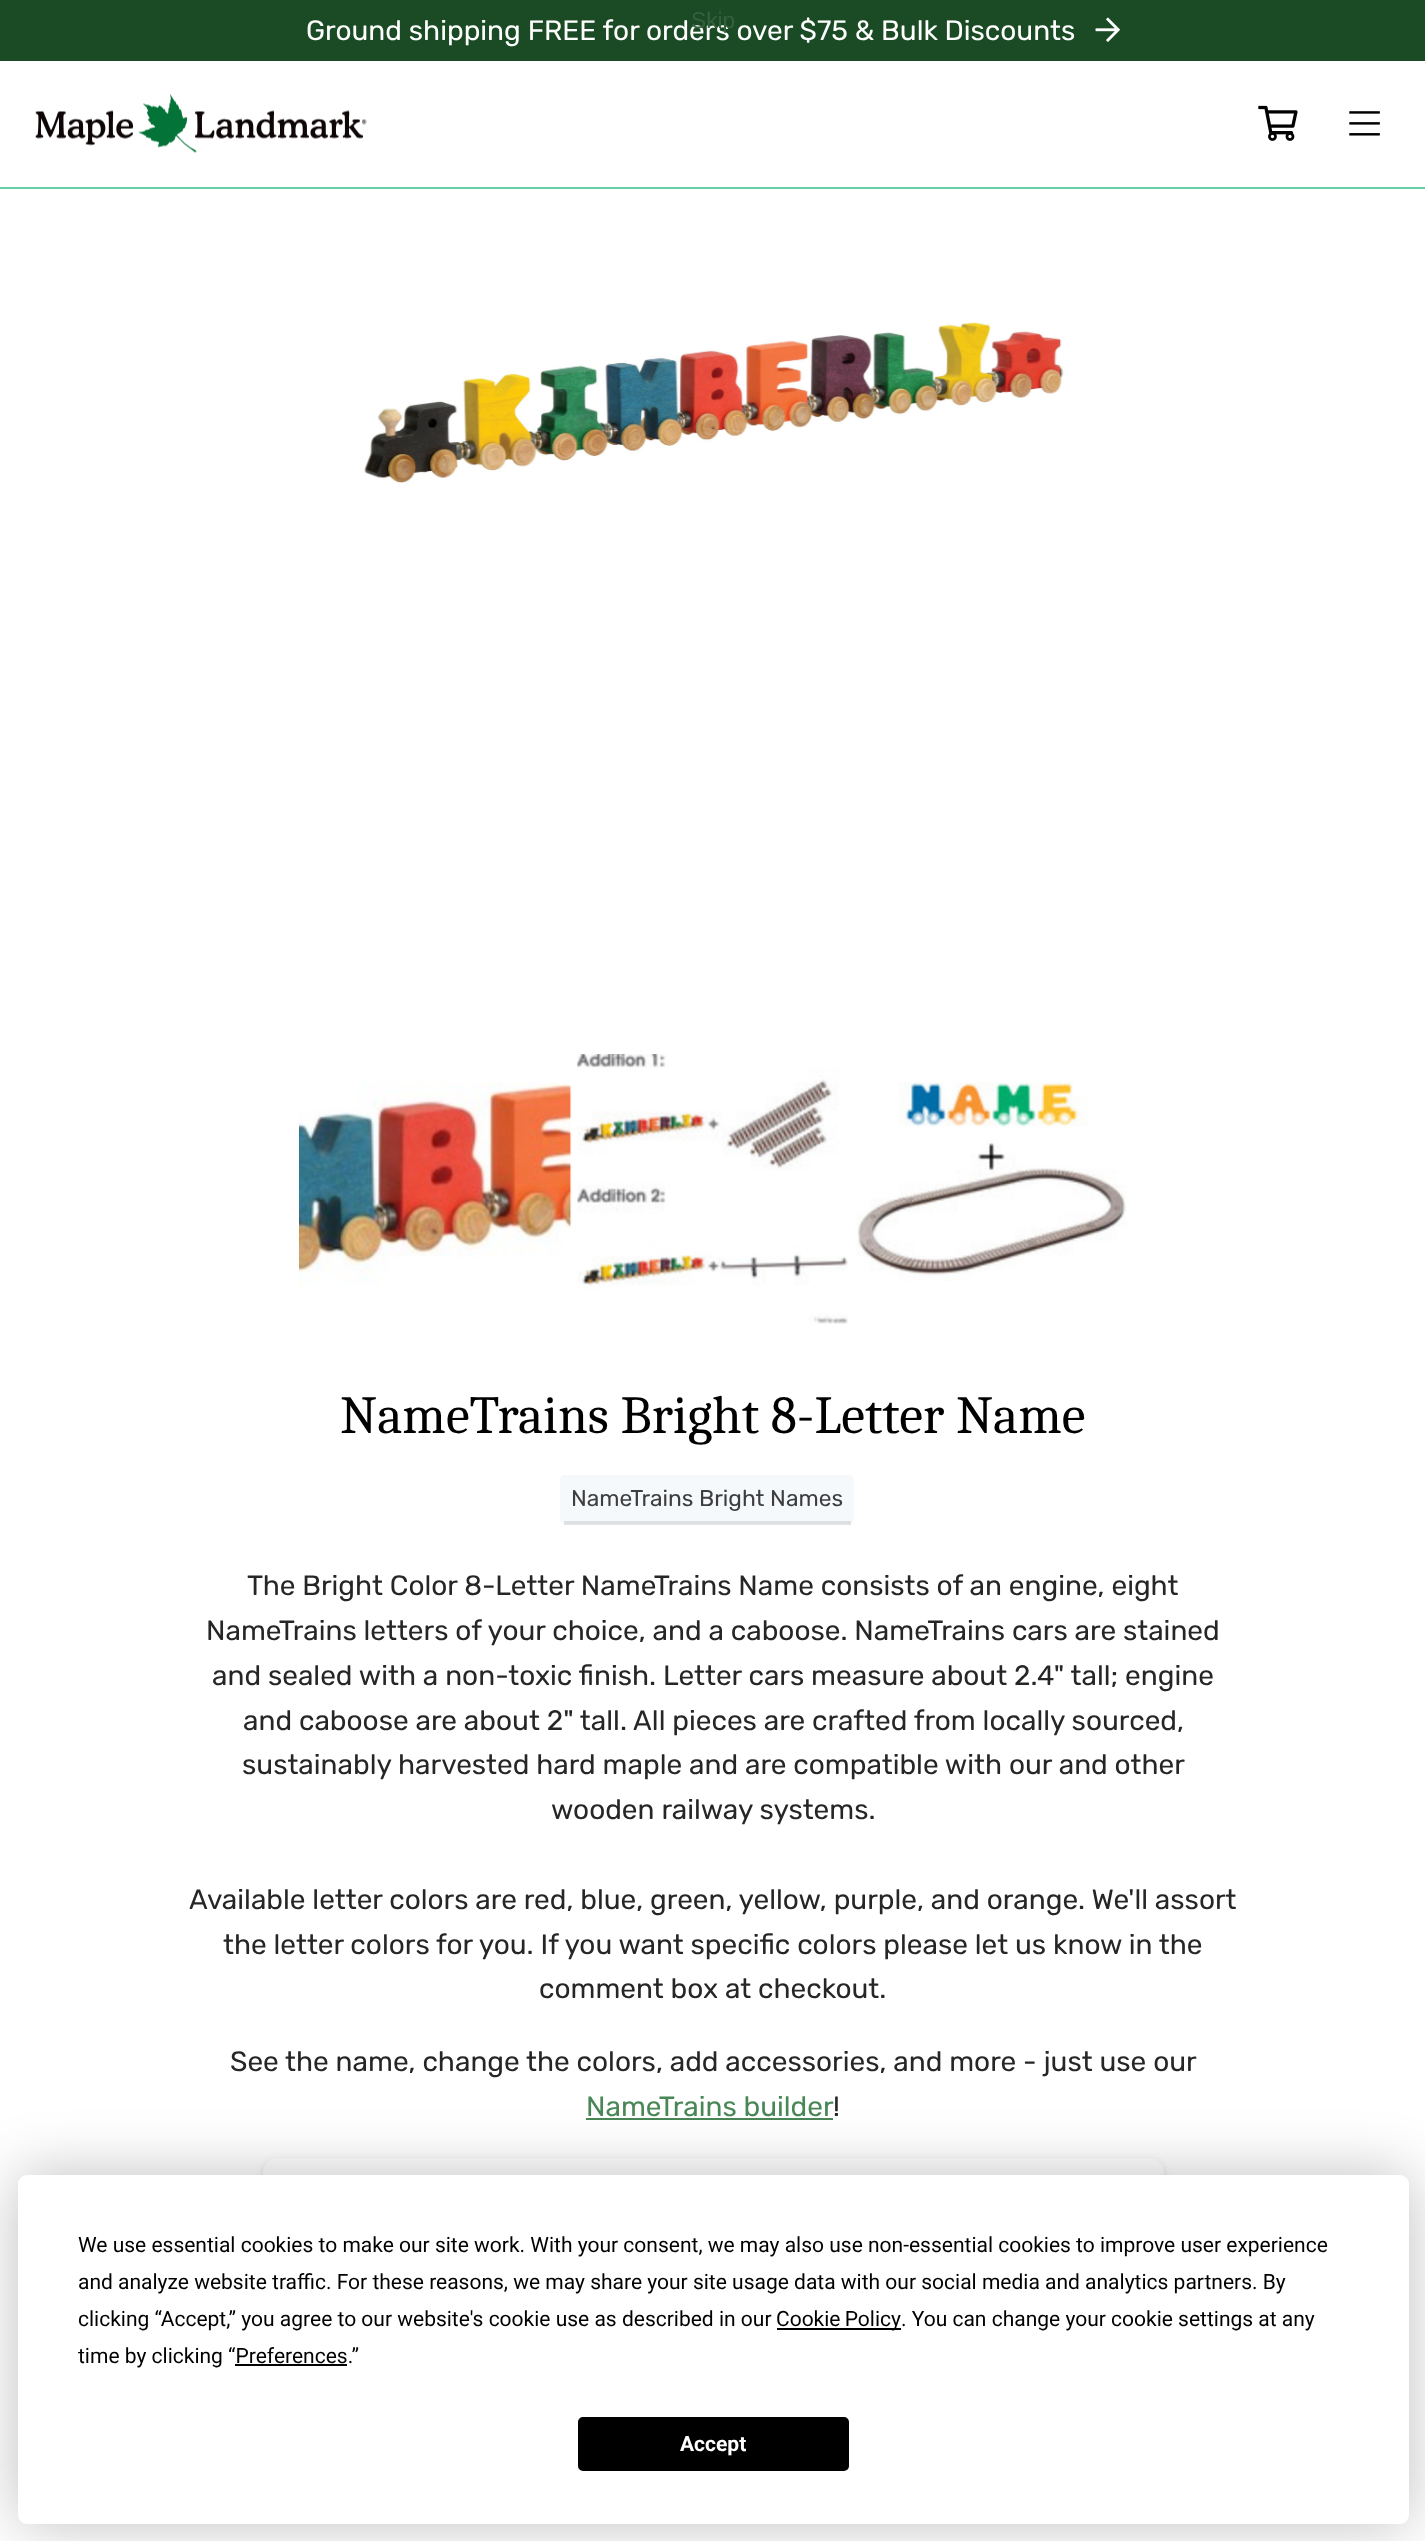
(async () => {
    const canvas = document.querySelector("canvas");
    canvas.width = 1425;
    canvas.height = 2541;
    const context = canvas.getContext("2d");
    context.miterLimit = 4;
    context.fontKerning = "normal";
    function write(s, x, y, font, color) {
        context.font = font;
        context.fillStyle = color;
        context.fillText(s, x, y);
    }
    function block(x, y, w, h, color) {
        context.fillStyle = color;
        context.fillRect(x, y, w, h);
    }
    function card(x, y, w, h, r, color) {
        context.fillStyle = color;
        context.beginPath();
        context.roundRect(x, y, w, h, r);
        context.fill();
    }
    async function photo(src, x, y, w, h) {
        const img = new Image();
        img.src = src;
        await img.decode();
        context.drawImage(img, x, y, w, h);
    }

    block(0, 0, 1425, 2541, "rgb(255, 255, 255)");
    block(0, 0, 1425, 61, "rgb(27, 75, 37)");
    write("Ground shipping FREE for orders over $75 & Bulk Discounts", 306, 40, "28px Rubik", "rgb(255, 255, 255)");
    write("Skip", 691, 28, "22.75px Liberation Sans", "rgb(53, 96, 62)");
    await photo("media/1.png", 1095, 17, 25, 25);
    block(0, 187, 1425, 2, "rgb(102, 206, 167)");
    await photo("media/2.png", 35, 94, 332, 59);
    await photo("media/3.png", 1258, 105, 40, 36);
    await photo("media/4.png", 1349, 111, 31, 25);
    await photo("media/5.png", 364, 322, 700, 161);
    await photo("media/6.png", 299, 1082, 273, 204);
    await photo("media/7.png", 577, 1054, 271, 270);
    await photo("media/8.png", 856, 1081, 271, 200);
    write("NameTrains Bright 8-Letter Name", 340, 1433, "53.6px Caladea", "rgb(0, 0, 0)");
    card(560, 1475, 294, 49, 5, "rgb(246, 249, 252)");
    block(564, 1521, 287, 4, "rgba(0, 0, 0, 0.1)");
    write("NameTrains Bright Names", 571, 1506, "22.75px Rubik", "rgb(62, 62, 63)");
    write("The Bright Color 8-Letter NameTrains Name consists of an engine, eight", 247, 1595, "28px Rubik", "rgb(38, 38, 38)");
    write("NameTrains letters of your choice, and a caboose. NameTrains cars are stained", 206, 1640, "28px Rubik", "rgb(38, 38, 38)");
    write("and sealed with a non-toxic finish. Letter cars measure about 2.4\" tall; engine", 212, 1685, "28px Rubik", "rgb(38, 38, 38)");
    write("and caboose are about 2\" tall. All pieces are crafted from locally sourced,", 243, 1730, "28px Rubik", "rgb(38, 38, 38)");
    write("sustainably harvested hard maple and are compatible with our and other", 242, 1774, "28px Rubik", "rgb(38, 38, 38)");
    write("wooden railway systems.", 551, 1819, "28px Rubik", "rgb(38, 38, 38)");
    write("Available letter colors are red, blue, green, yellow, purple, and orange. We'll assort", 189, 1909, "28px Rubik", "rgb(38, 38, 38)");
    write("the letter colors for you. If you want specific colors please let us know in the", 223, 1954, "28px Rubik", "rgb(38, 38, 38)");
    write("comment box at checkout.", 539, 1998, "28px Rubik", "rgb(38, 38, 38)");
    write("See the name, change the colors, add accessories, and more - just use our", 230, 2071, "28px Rubik", "rgb(38, 38, 38)");
    write("NameTrains builder", 586, 2116, "28px Rubik", "rgb(73, 135, 86)");
    block(586, 2118, 247, 2, "rgb(73, 135, 86)");
    write("!", 833, 2116, "28px Rubik", "rgb(38, 38, 38)");
    context.fillStyle = "rgba(0, 0, 0, 0.07)";
    context.filter = "blur(2px)";
    context.beginPath();
    context.roundRect(263, 2160, 901, 113, 14);
    context.fill();
    context.filter = "none";
    context.fillStyle = "rgba(50, 50, 93, 0.09)";
    context.filter = "blur(4.5px)";
    context.beginPath();
    context.roundRect(263, 2161, 901, 114, 14);
    context.fill();
    context.filter = "none";
    card(263, 2158, 901, 114, 14, "rgb(255, 255, 255)");
    context.fillStyle = "rgba(0, 0, 0, 0.25)";
    context.filter = "blur(30.5px)";
    context.beginPath();
    context.roundRect(18, 2175, 1391, 349, 9);
    context.fill();
    context.filter = "none";
    card(18, 2175, 1391, 349, 9, "rgb(255, 255, 255)");
    write("We use essential cookies to make our site work. With your consent, we may also use non-essential cookies to improve user experience", 78, 2252, "21px Roboto", "rgb(0, 0, 0)");
    write("and analyze website traffic. For these reasons, we may share your site usage data with our social media and analytics partners. By", 78, 2289, "21px Roboto", "rgb(0, 0, 0)");
    write("clicking “Accept,” you agree to our website's cookie use as described in our", 78, 2326, "21px Roboto", "rgb(0, 0, 0)");
    block(777, 2328, 124, 2, "rgb(0, 0, 0)");
    context.wordSpacing = "-1px";
    write("Cookie Policy", 776, 2326, "21px Roboto", "rgb(0, 0, 0)");
    context.wordSpacing = "0px";
    write(". You can change your cookie settings at any", 901, 2326, "21px Roboto", "rgb(0, 0, 0)");
    write("time by clicking “Preferences.”", 78, 2363, "21px Roboto", "rgb(0, 0, 0)");
    block(235, 2364, 112, 2, "rgb(0, 0, 0)");
    context.beginPath();
    context.roundRect(579, 2418, 269, 52, 4);
    context.fill();
    context.strokeStyle = "rgb(0, 0, 0)";
    context.lineWidth = 2;
    context.stroke();
    write("Accept", 680, 2451, "bold 21px Roboto", "rgb(255, 255, 255)");
})();
